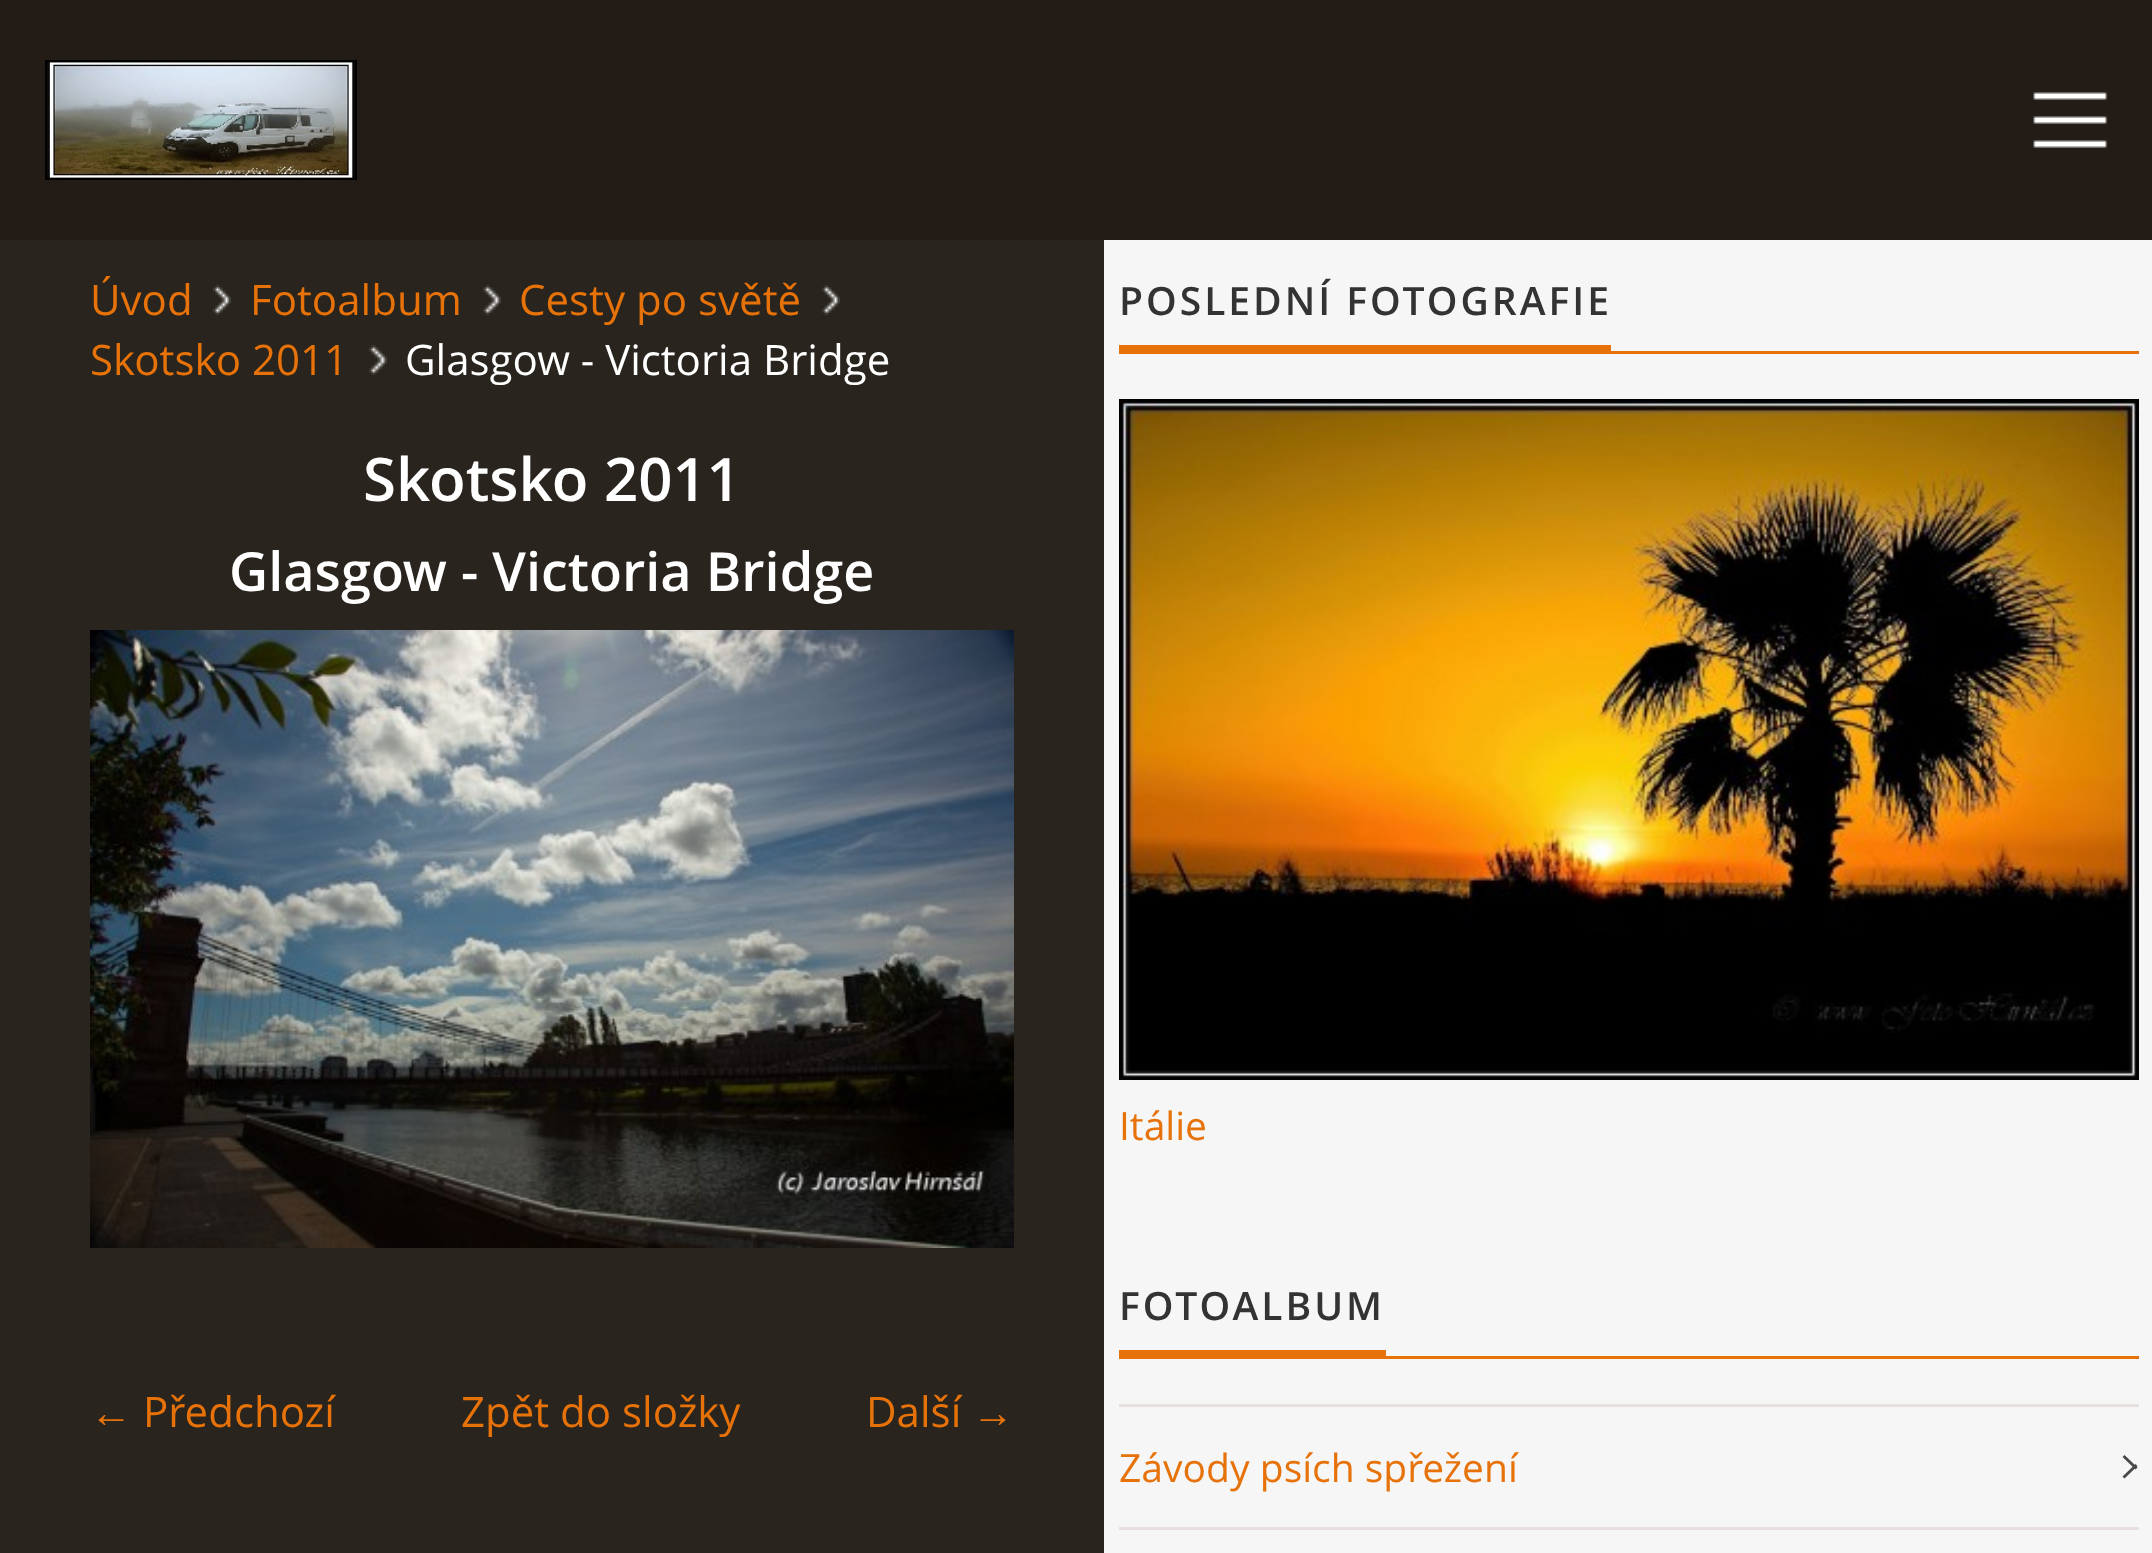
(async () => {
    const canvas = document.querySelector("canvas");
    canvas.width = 2152;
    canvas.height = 1553;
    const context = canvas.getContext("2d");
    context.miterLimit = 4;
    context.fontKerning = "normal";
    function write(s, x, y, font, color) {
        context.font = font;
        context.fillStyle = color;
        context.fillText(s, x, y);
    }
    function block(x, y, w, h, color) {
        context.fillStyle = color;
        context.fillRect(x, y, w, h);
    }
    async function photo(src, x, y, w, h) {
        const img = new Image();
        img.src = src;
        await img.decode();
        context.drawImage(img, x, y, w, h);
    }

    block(0, 0, 2152, 1553, "rgb(41, 36, 30)");
    block(0, 0, 2152, 240, "rgb(34, 27, 22)");
    await photo("media/1.png", 45, 60, 312, 120);
    await photo("media/2.png", 2033, 92, 74, 56);
    await photo("media/3.png", 213, 285, 18, 30);
    write("Úvod", 90, 315, "42px Open Sans", "rgb(230, 114, 9)");
    await photo("media/4.png", 483, 285, 18, 30);
    write("Fotoalbum", 250, 315, "42px Open Sans", "rgb(230, 114, 9)");
    await photo("media/3.png", 822, 285, 18, 30);
    write("Cesty po světě", 519, 315, "42px Open Sans", "rgb(230, 114, 9)");
    await photo("media/4.png", 369, 345, 18, 30);
    write("Skotsko 2011", 90, 375, "42px Open Sans", "rgb(230, 114, 9)");
    write("Glasgow - Victoria Bridge", 405, 375, "42px Open Sans", "rgb(255, 255, 255)");
    write("Skotsko 2011", 363, 501, "600 60px Open Sans", "rgb(255, 255, 255)");
    write("Glasgow - Victoria Bridge", 229, 591, "600 54px Open Sans", "rgb(255, 255, 255)");
    await photo("media/5.png", 90, 630, 924, 618);
    write("←", 90, 1427, "42px Liberation Serif", "rgb(230, 114, 9)");
    write("Předchozí", 143, 1427, "42px Open Sans", "rgb(230, 114, 9)");
    write("Zpět do složky", 461, 1427, "42px Open Sans", "rgb(230, 114, 9)");
    write("Další", 866, 1427, "42px Open Sans", "rgb(230, 114, 9)");
    write("→", 972, 1427, "42px Liberation Serif", "rgb(230, 114, 9)");
    block(1104, 240, 1048, 1313, "rgb(246, 246, 246)");
    context.letterSpacing = "3px";
    write("POSLEDNÍ FOTOGRAFIE", 1119, 315, "600 39px Open Sans", "rgb(51, 51, 51)");
    block(1119, 345, 492, 6, "rgb(230, 114, 9)");
    block(1119, 351, 1020, 3, "rgb(230, 114, 9)");
    await photo("media/6.png", 1119, 399, 1020, 681);
    context.letterSpacing = "0px";
    write("Itálie", 1119, 1140, "39px Open Sans", "rgb(230, 114, 9)");
    context.letterSpacing = "3px";
    write("FOTOALBUM", 1119, 1320, "600 39px Open Sans", "rgb(51, 51, 51)");
    block(1119, 1350, 267, 6, "rgb(230, 114, 9)");
    block(1119, 1356, 1020, 3, "rgb(230, 114, 9)");
    block(1119, 1404, 1020, 3, "rgb(232, 223, 223)");
    block(1119, 1527, 1020, 3, "rgb(232, 223, 223)");
    context.letterSpacing = "0px";
    write("Závody psích spřežení", 1119, 1482, "39px Open Sans", "rgb(230, 114, 9)");
    context.fillStyle = "rgb(72, 72, 72)";
    context.beginPath();
    context.moveTo(2124.5, 1455);
    context.lineTo(2137.5, 1467.5);
    context.lineTo(2135.5, 1469.5);
    context.lineTo(2122.5, 1457);
    context.closePath();
    context.fill();
    context.beginPath();
    context.moveTo(2122.5, 1476.5);
    context.lineTo(2135.5, 1464);
    context.lineTo(2137.5, 1466);
    context.lineTo(2124.5, 1478.5);
    context.closePath();
    context.fill();
})();
